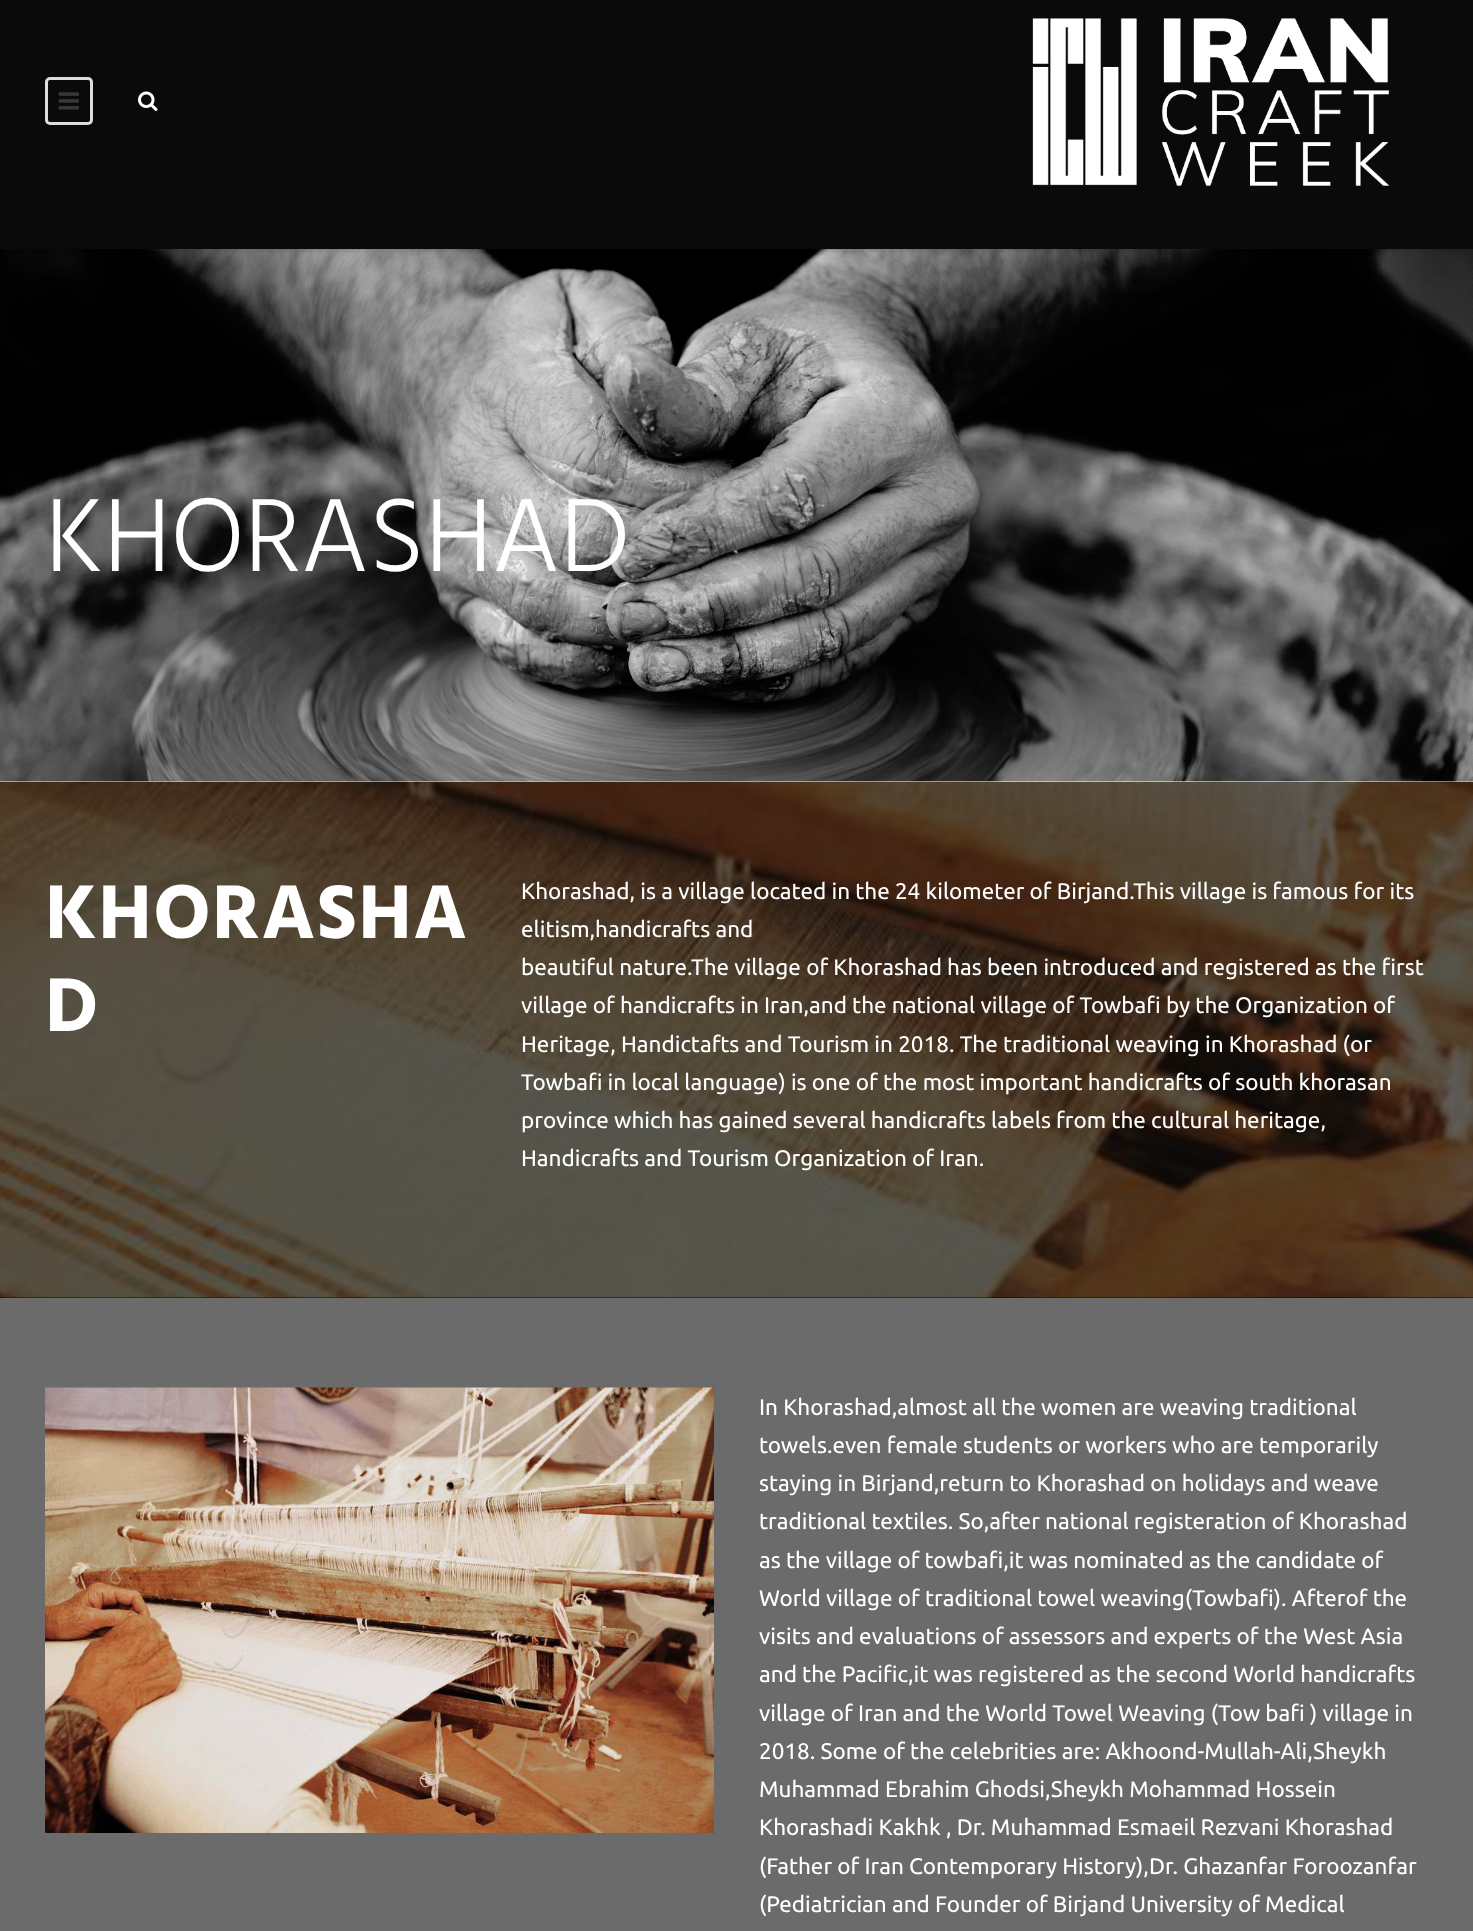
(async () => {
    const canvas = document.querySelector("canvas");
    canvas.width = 1473;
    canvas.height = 1931;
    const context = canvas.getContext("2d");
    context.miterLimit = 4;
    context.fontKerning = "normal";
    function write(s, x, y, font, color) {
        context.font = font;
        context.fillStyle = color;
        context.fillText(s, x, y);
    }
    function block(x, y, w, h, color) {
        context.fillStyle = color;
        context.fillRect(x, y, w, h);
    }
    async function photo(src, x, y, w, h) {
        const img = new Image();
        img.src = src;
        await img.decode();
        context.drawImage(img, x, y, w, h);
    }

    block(0, 0, 1473, 1931, "rgb(255, 255, 255)");
    await photo("media/4.png", 0, 249, 1473, 533);
    context.fillStyle = "rgba(0, 0, 0, 0.1)";
    context.filter = "blur(1.5px)";
    context.beginPath();
    context.rect(0, -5, 1473, 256);
    context.fill();
    context.filter = "none";
    block(0, 0, 1473, 249, "rgb(10, 10, 10)");
    context.beginPath();
    context.roundRect(46.5, 78.5, 45, 45, 3.5);
    context.strokeStyle = "rgb(221, 221, 221)";
    context.lineWidth = 3;
    context.stroke();
    await photo("media/1.png", 58, 92, 21, 18);
    await photo("media/2.png", 138, 91, 20, 20);
    await photo("media/3.png", 1032, 18, 358, 168);
    write("KHORASHAD", 45, 571, "300 106.5px Hind", "rgb(255, 255, 255)");
    block(0, 782, 1473, 516, "rgb(10, 10, 10)");
    await photo("media/5.png", 0, 781, 1473, 517);
    context.letterSpacing = "1.5px";
    write("KHORASHA", 45, 938, "bold 78px Hind", "rgb(255, 255, 255)");
    write("D", 45, 1031, "bold 78px Hind", "rgb(255, 255, 255)");
    context.letterSpacing = "0px";
    write("Khorashad, is a village located in the 24 kilometer of Birjand.This village is famous for its", 521, 899, "22.5px Ubuntu", "rgb(255, 255, 255)");
    write("elitism,handicrafts and", 521, 937, "22.5px Ubuntu", "rgb(255, 255, 255)");
    write("beautiful nature.The village of Khorashad has been introduced and registered as the first", 521, 975, "22.5px Ubuntu", "rgb(255, 255, 255)");
    write("village of handicrafts in Iran,and the national village of Towbafi by the Organization of", 521, 1013, "22.5px Ubuntu", "rgb(255, 255, 255)");
    write("Heritage, Handictafts and Tourism in 2018. The traditional weaving in Khorashad (or", 521, 1052, "22.5px Ubuntu", "rgb(255, 255, 255)");
    write("Towbafi in local language) is one of the most important handicrafts of south khorasan", 521, 1090, "22.5px Ubuntu", "rgb(255, 255, 255)");
    write("province which has gained several handicrafts labels from the cultural heritage,", 521, 1128, "22.5px Ubuntu", "rgb(255, 255, 255)");
    write("Handicrafts and Tourism Organization of Iran.", 521, 1166, "22.5px Ubuntu", "rgb(255, 255, 255)");
    block(0, 1298, 1473, 633, "rgb(107, 107, 107)");
    await photo("media/6.png", 45, 1387, 669, 446);
    write("In Khorashad,almost all the women are weaving traditional", 759, 1415, "22.5px Ubuntu", "rgb(255, 255, 255)");
    write("towels.even female students or workers who are temporarily", 759, 1453, "22.5px Ubuntu", "rgb(255, 255, 255)");
    write("staying in Birjand,return to Khorashad on holidays and weave", 759, 1491, "22.5px Ubuntu", "rgb(255, 255, 255)");
    write("traditional textiles. So,after national registeration of Khorashad", 759, 1529, "22.5px Ubuntu", "rgb(255, 255, 255)");
    write("as the village of towbafi,it was nominated as the candidate of", 759, 1568, "22.5px Ubuntu", "rgb(255, 255, 255)");
    write("World village of traditional towel weaving(Towbafi). Afterof the", 759, 1606, "22.5px Ubuntu", "rgb(255, 255, 255)");
    write("visits and evaluations of assessors and experts of the West Asia", 759, 1644, "22.5px Ubuntu", "rgb(255, 255, 255)");
    write("and the Pacific,it was registered as the second World handicrafts", 759, 1682, "22.5px Ubuntu", "rgb(255, 255, 255)");
    write("village of Iran and the World Towel Weaving (Tow bafi ) village in", 759, 1721, "22.5px Ubuntu", "rgb(255, 255, 255)");
    write("2018. Some of the celebrities are: Akhoond-Mullah-Ali,Sheykh", 759, 1759, "22.5px Ubuntu", "rgb(255, 255, 255)");
    write("Muhammad Ebrahim Ghodsi,Sheykh Mohammad Hossein", 759, 1797, "22.5px Ubuntu", "rgb(255, 255, 255)");
    write("Khorashadi Kakhk , Dr. Muhammad Esmaeil Rezvani Khorashad", 759, 1835, "22.5px Ubuntu", "rgb(255, 255, 255)");
    write("(Father of Iran Contemporary History),Dr. Ghazanfar Foroozanfar", 759, 1874, "22.5px Ubuntu", "rgb(255, 255, 255)");
    write("(Pediatrician and Founder of Birjand University of Medical", 759, 1912, "22.5px Ubuntu", "rgb(255, 255, 255)");
})();
